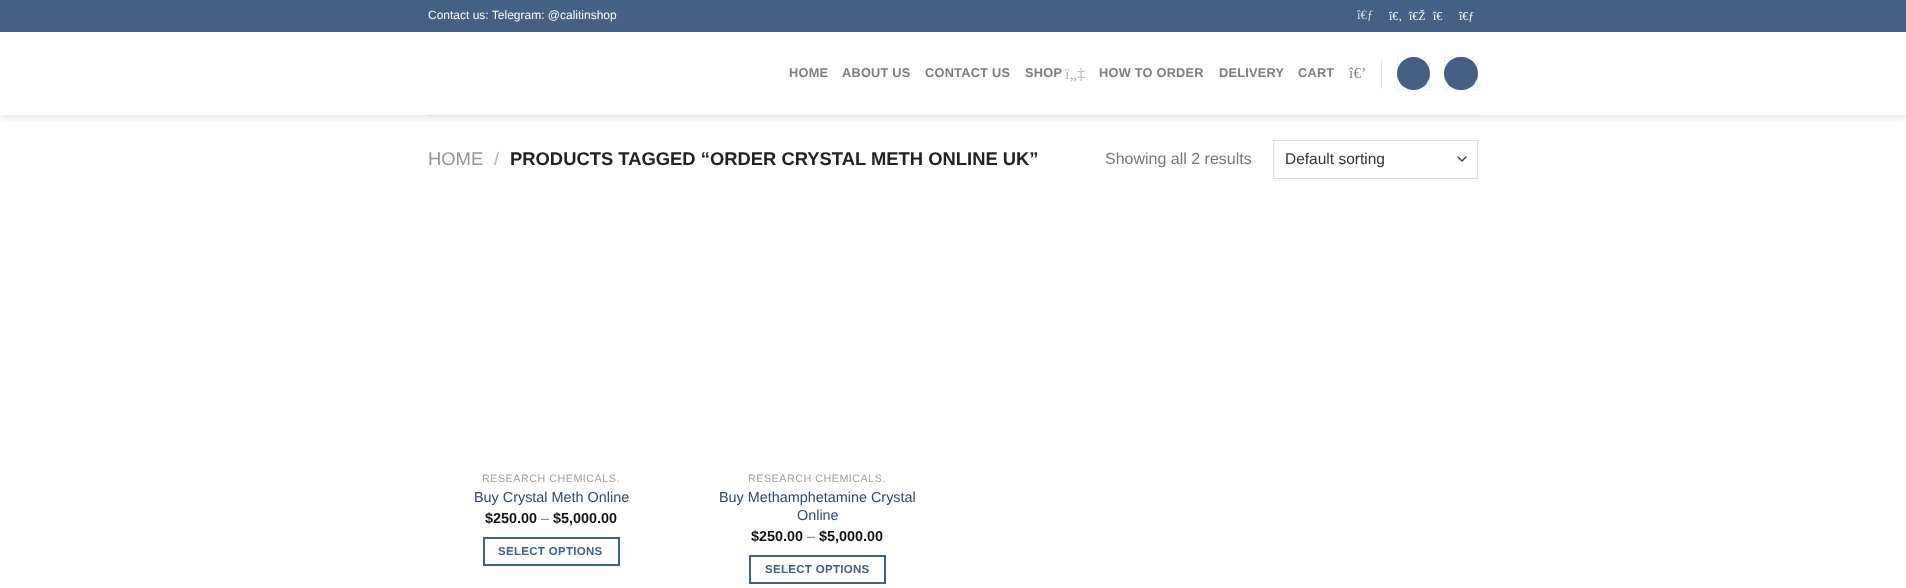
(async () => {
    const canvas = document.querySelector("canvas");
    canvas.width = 1906;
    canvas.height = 588;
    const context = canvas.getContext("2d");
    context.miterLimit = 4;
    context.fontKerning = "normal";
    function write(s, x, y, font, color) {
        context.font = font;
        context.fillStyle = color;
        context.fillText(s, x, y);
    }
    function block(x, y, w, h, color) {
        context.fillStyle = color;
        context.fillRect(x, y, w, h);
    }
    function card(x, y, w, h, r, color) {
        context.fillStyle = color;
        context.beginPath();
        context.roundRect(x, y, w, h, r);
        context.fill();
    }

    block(0, 0, 1906, 588, "rgb(255, 255, 255)");
    context.save();
    context.beginPath();
    context.rect(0, 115, 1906, 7);
    context.clip();
    context.fillStyle = "rgba(0, 0, 0, 0.15)";
    context.filter = "blur(5px)";
    context.beginPath();
    context.rect(1, 1, 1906, 115);
    context.fill();
    context.filter = "none";
    context.restore();
    block(0, 0, 1906, 32, "rgb(68, 96, 132)");
    write("Contact us: Telegram: @calitinshop", 428, 19, "12px Liberation Sans", "rgb(255, 255, 255)");
    write("î€ƒ", 1357, 19, "12.75px Liberation Serif", "rgb(218, 223, 230)");
    write("î€‚", 1389, 20, "12px Liberation Serif", "rgb(255, 255, 255)");
    write("î€Ž", 1409, 20, "12px Liberation Serif", "rgb(255, 255, 255)");
    write("î€", 1433, 20, "12px Liberation Serif", "rgb(255, 255, 255)");
    write("î€ƒ", 1459, 20, "12px Liberation Serif", "rgb(255, 255, 255)");
    context.letterSpacing = "0.25px";
    write("HOME", 789, 77, "bold 12.75px Liberation Sans", "rgb(125, 125, 125)");
    write("ABOUT US", 842, 77, "bold 12.75px Liberation Sans", "rgb(125, 125, 125)");
    write("CONTACT US", 925, 77, "bold 12.75px Liberation Sans", "rgb(125, 125, 125)");
    write("SHOP", 1025, 77, "bold 12.75px Liberation Sans", "rgb(125, 125, 125)");
    write("ï„‡", 1065, 79, "16px Liberation Serif", "rgb(178, 178, 178)");
    write("HOW TO ORDER", 1099, 77, "bold 12.75px Liberation Sans", "rgb(125, 125, 125)");
    write("DELIVERY", 1219, 77, "bold 12.75px Liberation Sans", "rgb(125, 125, 125)");
    write("CART", 1298, 77, "bold 12.75px Liberation Sans", "rgb(125, 125, 125)");
    write("î€’", 1349, 78, "15px Liberation Serif", "rgb(125, 125, 125)");
    block(1381, 59, 1, 30, "rgb(230, 230, 230)");
    context.fillStyle = "rgb(68, 96, 132)";
    context.beginPath();
    context.arc(1413.5, 73.5, 16.5, 0, Math.PI * 2);
    context.fill();
    context.strokeStyle = "rgba(0, 0, 0, 0.05)";
    context.strokeRect(1397.5, 57.5, 32, 32);
    card(1444, 57, 34, 33, 16.5, "rgb(68, 96, 132)");
    context.strokeRect(1444.5, 57.5, 33, 32);
    block(428, 115, 1050, 1, "rgb(223, 223, 223)");
    context.letterSpacing = "0px";
    write("HOME", 428, 165, "18.4px Liberation Sans", "rgb(148, 148, 148)");
    write("/", 494, 165, "18.4px Liberation Sans", "rgb(178, 178, 178)");
    write("PRODUCTS TAGGED “ORDER CRYSTAL METH ONLINE UK”", 510, 165, "bold 18.4px Liberation Sans", "rgb(34, 34, 34)");
    write("Showing all 2 results", 1105, 164, "16px Liberation Sans", "rgb(119, 119, 119)");
    context.beginPath();
    context.moveTo(1458, 157);
    context.lineTo(1462, 161);
    context.lineTo(1466, 157);
    context.strokeStyle = "rgb(51, 51, 51)";
    context.lineWidth = 1.3;
    context.lineCap = "round";
    context.lineJoin = "round";
    context.stroke();
    context.strokeStyle = "rgb(221, 221, 221)";
    context.lineWidth = 1;
    context.lineJoin = "miter";
    context.strokeRect(1273.5, 140.5, 204, 38);
    write("Default sorting", 1285, 164, "15.5px Liberation Sans", "rgb(51, 51, 51)");
    context.letterSpacing = "0.5px";
    write("RESEARCH CHEMICALS.", 482, 482, "10.75px Liberation Sans", "rgb(160, 160, 160)");
    context.letterSpacing = "0px";
    write("Buy Crystal Meth Online", 474, 502, "14.4px Liberation Sans", "rgb(51, 72, 98)");
    write("$250.00", 485, 523, "bold 14.4px Liberation Sans", "rgb(17, 17, 17)");
    write("–", 541, 523, "14.4px Liberation Sans", "rgb(119, 119, 119)");
    write("$5,000.00", 553, 523, "bold 14.4px Liberation Sans", "rgb(17, 17, 17)");
    context.strokeStyle = "rgb(68, 96, 132)";
    context.lineWidth = 2;
    context.strokeRect(484, 538, 135, 27);
    context.letterSpacing = "0.3px";
    write("SELECT OPTIONS", 498, 555, "bold 11.5px Liberation Sans", "rgb(68, 96, 132)");
    context.letterSpacing = "0.5px";
    write("RESEARCH CHEMICALS.", 748, 482, "10.75px Liberation Sans", "rgb(160, 160, 160)");
    context.letterSpacing = "0px";
    write("Buy Methamphetamine Crystal", 719, 502, "14.4px Liberation Sans", "rgb(51, 72, 98)");
    write("Online", 797, 520, "14.4px Liberation Sans", "rgb(51, 72, 98)");
    write("$250.00", 751, 541, "bold 14.4px Liberation Sans", "rgb(17, 17, 17)");
    write("–", 807, 541, "14.4px Liberation Sans", "rgb(119, 119, 119)");
    write("$5,000.00", 819, 541, "bold 14.4px Liberation Sans", "rgb(17, 17, 17)");
    context.strokeRect(750, 556, 135, 27);
    context.letterSpacing = "0.3px";
    write("SELECT OPTIONS", 765, 573, "bold 11.5px Liberation Sans", "rgb(68, 96, 132)");
})();
